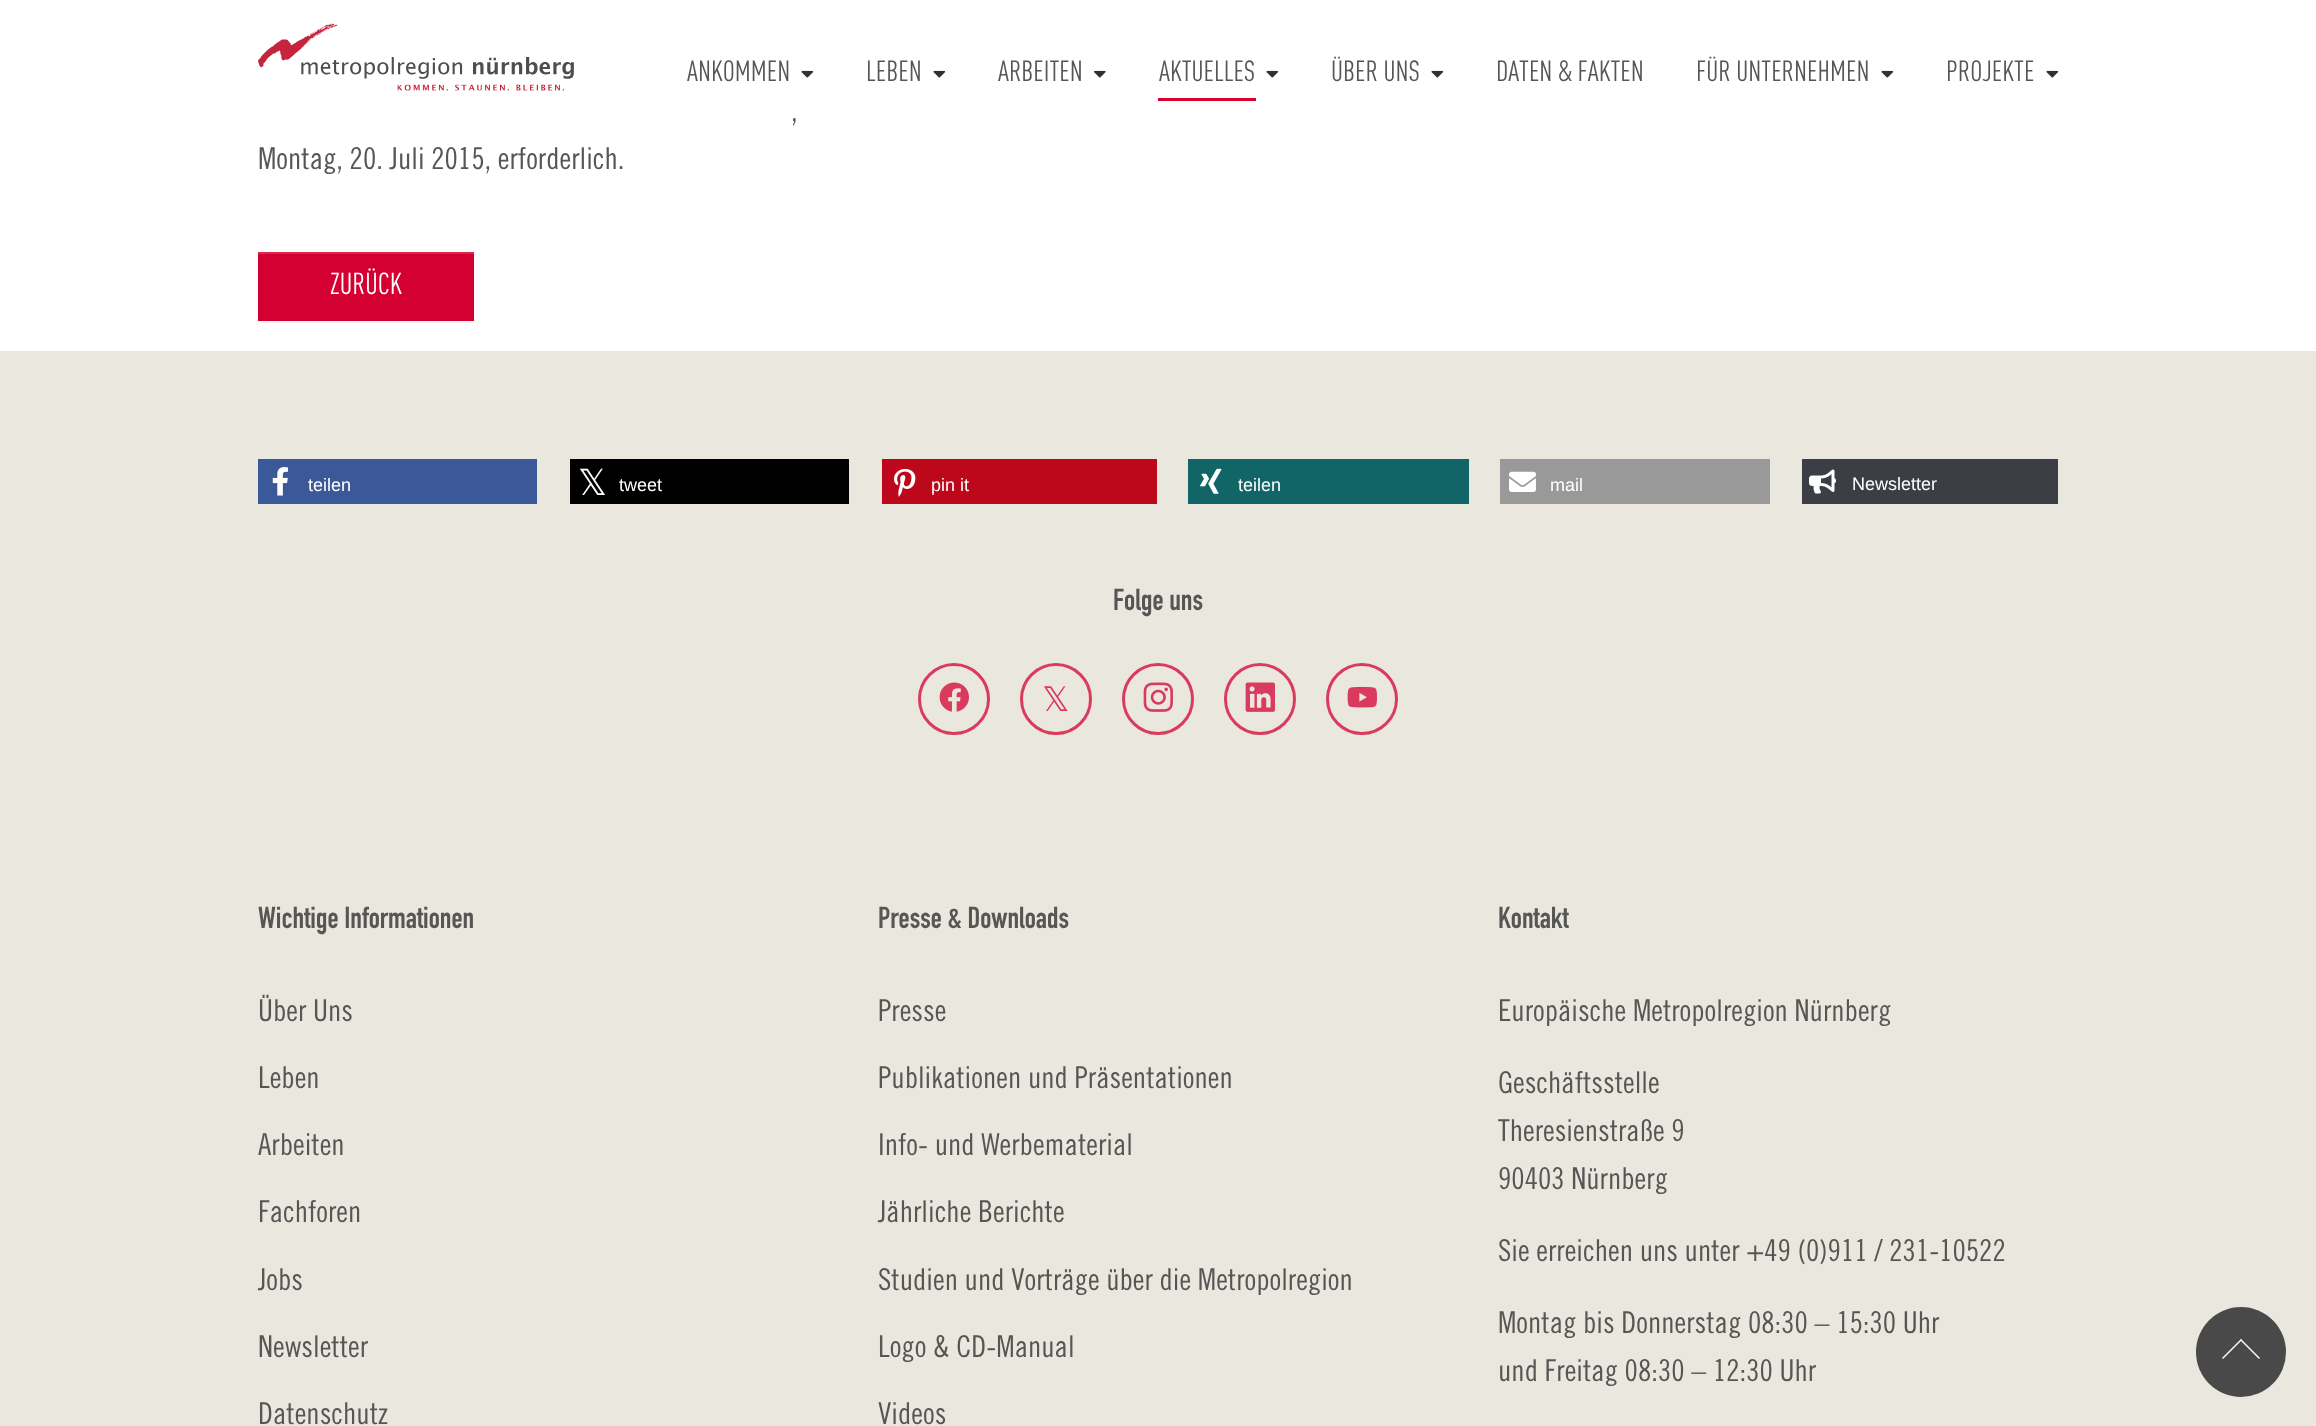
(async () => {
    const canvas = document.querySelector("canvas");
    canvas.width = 2316;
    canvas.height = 1426;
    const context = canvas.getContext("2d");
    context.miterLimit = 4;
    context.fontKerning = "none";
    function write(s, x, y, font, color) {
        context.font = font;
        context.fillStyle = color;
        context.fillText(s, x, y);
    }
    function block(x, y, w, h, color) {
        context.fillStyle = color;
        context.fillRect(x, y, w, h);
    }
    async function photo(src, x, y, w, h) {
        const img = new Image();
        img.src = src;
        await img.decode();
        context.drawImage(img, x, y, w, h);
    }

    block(0, 0, 2316, 1426, "rgb(255, 255, 255)");
    await photo("media/1.png", 258, 23, 316, 68);
    write("ANKOMMEN", 687, 81, "28.75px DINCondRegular", "rgb(86, 86, 85)");
    await photo("media/2.png", 801, 70, 13, 8);
    write("LEBEN", 866, 81, "28.75px DINCondRegular", "rgb(86, 86, 85)");
    await photo("media/2.png", 933, 70, 13, 8);
    write("ARBEITEN", 998, 81, "28.75px DINCondRegular", "rgb(86, 86, 85)");
    await photo("media/3.png", 1094, 70, 12, 8);
    write("AKTUELLES", 1159, 81, "28.75px DINCondRegular", "rgb(86, 86, 85)");
    block(1158, 98, 98, 3, "rgb(212, 0, 50)");
    await photo("media/2.png", 1266, 70, 13, 8);
    write("ÜBER UNS", 1331, 81, "28.75px DINCondRegular", "rgb(86, 86, 85)");
    await photo("media/2.png", 1431, 70, 13, 8);
    write("DATEN & FAKTEN", 1496, 81, "28.75px DINCondRegular", "rgb(86, 86, 85)");
    write("FÜR UNTERNEHMEN", 1696, 81, "28.75px DINCondRegular", "rgb(86, 86, 85)");
    await photo("media/2.png", 1881, 70, 13, 8);
    write("PROJEKTE", 1946, 81, "28.75px DINCondRegular", "rgb(86, 86, 85)");
    await photo("media/2.png", 2046, 70, 13, 8);
    context.wordSpacing = "2px";
    write(",", 791, 121, "30px 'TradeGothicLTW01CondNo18'", "rgb(86, 86, 85)");
    context.wordSpacing = "0px";
    write("Montag, 20. Juli 2015, erforderlich.", 258, 169, "30px 'TradeGothicLTW01CondNo18'", "rgb(86, 86, 85)");
    context.fillStyle = "rgba(86, 86, 85, 0.07)";
    context.filter = "blur(1px)";
    context.beginPath();
    context.rect(258, 254, 216, 69);
    context.fill();
    context.filter = "none";
    block(258, 254, 216, 67, "rgb(212, 0, 50)");
    block(258, 252, 216, 2, "rgb(218, 38, 81)");
    write("ZURÜCK", 330, 294, "30px DINCondRegular", "rgb(255, 255, 255)");
    block(0, 351, 2316, 1075, "rgb(234, 231, 222)");
    block(258, 459, 279, 45, "rgb(59, 89, 152)");
    await photo("media/4.png", 272, 467, 17, 29);
    write("teilen", 308, 491, "18px Liberation Sans", "rgb(255, 255, 255)");
    block(570, 459, 279, 45, "rgb(0, 0, 0)");
    write("𝕏", 578, 495, "36px DejaVu Sans", "rgb(255, 255, 255)");
    write("tweet", 619, 491, "18px Liberation Sans", "rgb(255, 255, 255)");
    block(882, 459, 275, 45, "rgb(189, 8, 28)");
    await photo("media/5.png", 894, 468, 22, 29);
    write("pin it", 931, 491, "18px Liberation Sans", "rgb(255, 255, 255)");
    block(1188, 459, 281, 45, "rgb(18, 101, 103)");
    await photo("media/6.png", 1200, 468, 22, 26);
    write("teilen", 1238, 491, "18px Liberation Sans", "rgb(255, 255, 255)");
    block(1500, 459, 270, 45, "rgb(153, 153, 153)");
    await photo("media/7.png", 1509, 471, 27, 21);
    write("mail", 1550, 491, "18px Liberation Sans", "rgb(255, 255, 255)");
    block(1802, 459, 256, 45, "rgb(59, 63, 69)");
    await photo("media/8.png", 1809, 469, 27, 25);
    write("Newsletter", 1852, 490, "18px Liberation Sans", "rgb(255, 255, 255)");
    write("Folge uns", 1113, 610, "bold 30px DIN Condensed", "rgb(86, 86, 85)");
    context.beginPath();
    context.arc(954, 699, 34.5, 0, Math.PI * 2);
    context.strokeStyle = "rgb(218, 58, 93)";
    context.lineWidth = 3;
    context.stroke();
    await photo("media/9.png", 939, 682, 30, 30);
    context.beginPath();
    context.arc(1056, 699, 34.5, 0, Math.PI * 2);
    context.stroke();
    write("𝕏", 1042, 711, "34px DejaVu Sans", "rgb(218, 58, 93)");
    context.beginPath();
    context.arc(1158, 699, 34.5, 0, Math.PI * 2);
    context.stroke();
    await photo("media/10.png", 1143, 682, 30, 30);
    context.beginPath();
    context.arc(1260, 699, 34.5, 0, Math.PI * 2);
    context.stroke();
    await photo("media/11.png", 1245, 682, 30, 30);
    context.beginPath();
    context.arc(1362, 699, 34.5, 0, Math.PI * 2);
    context.stroke();
    await photo("media/12.png", 1347, 686, 30, 22);
    write("Wichtige Informationen", 258, 928, "bold 30px DIN Condensed", "rgb(86, 86, 85)");
    write("Über Uns", 258, 1021, "30px 'TradeGothicLTW01CondNo18'", "rgb(86, 86, 85)");
    write("Leben", 258, 1088, "30px 'TradeGothicLTW01CondNo18'", "rgb(86, 86, 85)");
    write("Arbeiten", 258, 1155, "30px 'TradeGothicLTW01CondNo18'", "rgb(86, 86, 85)");
    write("Fachforen", 258, 1222, "30px 'TradeGothicLTW01CondNo18'", "rgb(86, 86, 85)");
    write("Jobs", 258, 1290, "30px 'TradeGothicLTW01CondNo18'", "rgb(86, 86, 85)");
    write("Newsletter", 258, 1357, "30px 'TradeGothicLTW01CondNo18'", "rgb(86, 86, 85)");
    write("Datenschutz", 258, 1424, "30px 'TradeGothicLTW01CondNo18'", "rgb(86, 86, 85)");
    write("Presse & Downloads", 878, 928, "bold 30px DIN Condensed", "rgb(86, 86, 85)");
    write("Presse", 878, 1021, "30px 'TradeGothicLTW01CondNo18'", "rgb(86, 86, 85)");
    write("Publikationen und Präsentationen", 878, 1088, "30px 'TradeGothicLTW01CondNo18'", "rgb(86, 86, 85)");
    write("Info- und Werbematerial", 878, 1155, "30px 'TradeGothicLTW01CondNo18'", "rgb(86, 86, 85)");
    write("Jährliche Berichte", 878, 1222, "30px 'TradeGothicLTW01CondNo18'", "rgb(86, 86, 85)");
    write("Studien und Vorträge über die Metropolregion", 878, 1290, "30px 'TradeGothicLTW01CondNo18'", "rgb(86, 86, 85)");
    write("Logo & CD-Manual", 878, 1357, "30px 'TradeGothicLTW01CondNo18'", "rgb(86, 86, 85)");
    write("Videos", 878, 1424, "30px 'TradeGothicLTW01CondNo18'", "rgb(86, 86, 85)");
    write("Kontakt", 1498, 928, "bold 30px DIN Condensed", "rgb(86, 86, 85)");
    write("Europäische Metropolregion Nürnberg", 1498, 1021, "30px 'TradeGothicLTW01CondNo18'", "rgb(86, 86, 85)");
    write("Geschäftsstelle", 1498, 1093, "30px 'TradeGothicLTW01CondNo18'", "rgb(86, 86, 85)");
    write("Theresienstraße 9", 1498, 1141, "30px 'TradeGothicLTW01CondNo18'", "rgb(86, 86, 85)");
    write("90403 Nürnberg", 1498, 1189, "30px 'TradeGothicLTW01CondNo18'", "rgb(86, 86, 85)");
    write("Sie erreichen uns unter +49 (0)911 / 231-10522", 1498, 1261, "30px 'TradeGothicLTW01CondNo18'", "rgb(86, 86, 85)");
    write("Montag bis Donnerstag 08:30 – 15:30 Uhr", 1498, 1333, "30px 'TradeGothicLTW01CondNo18'", "rgb(86, 86, 85)");
    write("und Freitag 08:30 – 12:30 Uhr", 1498, 1381, "30px 'TradeGothicLTW01CondNo18'", "rgb(86, 86, 85)");
    context.fillStyle = "rgb(73, 73, 73)";
    context.beginPath();
    context.arc(2241, 1352, 45, 0, Math.PI * 2);
    context.fill();
    context.fillStyle = "rgb(255, 255, 255)";
    context.beginPath();
    context.moveTo(2241, 1339);
    context.lineTo(2260, 1358);
    context.lineTo(2259, 1359);
    context.lineTo(2240, 1340);
    context.closePath();
    context.fill();
    context.beginPath();
    context.moveTo(2241, 1339);
    context.lineTo(2242, 1340);
    context.lineTo(2223, 1359);
    context.lineTo(2222, 1358);
    context.closePath();
    context.fill();
})();
